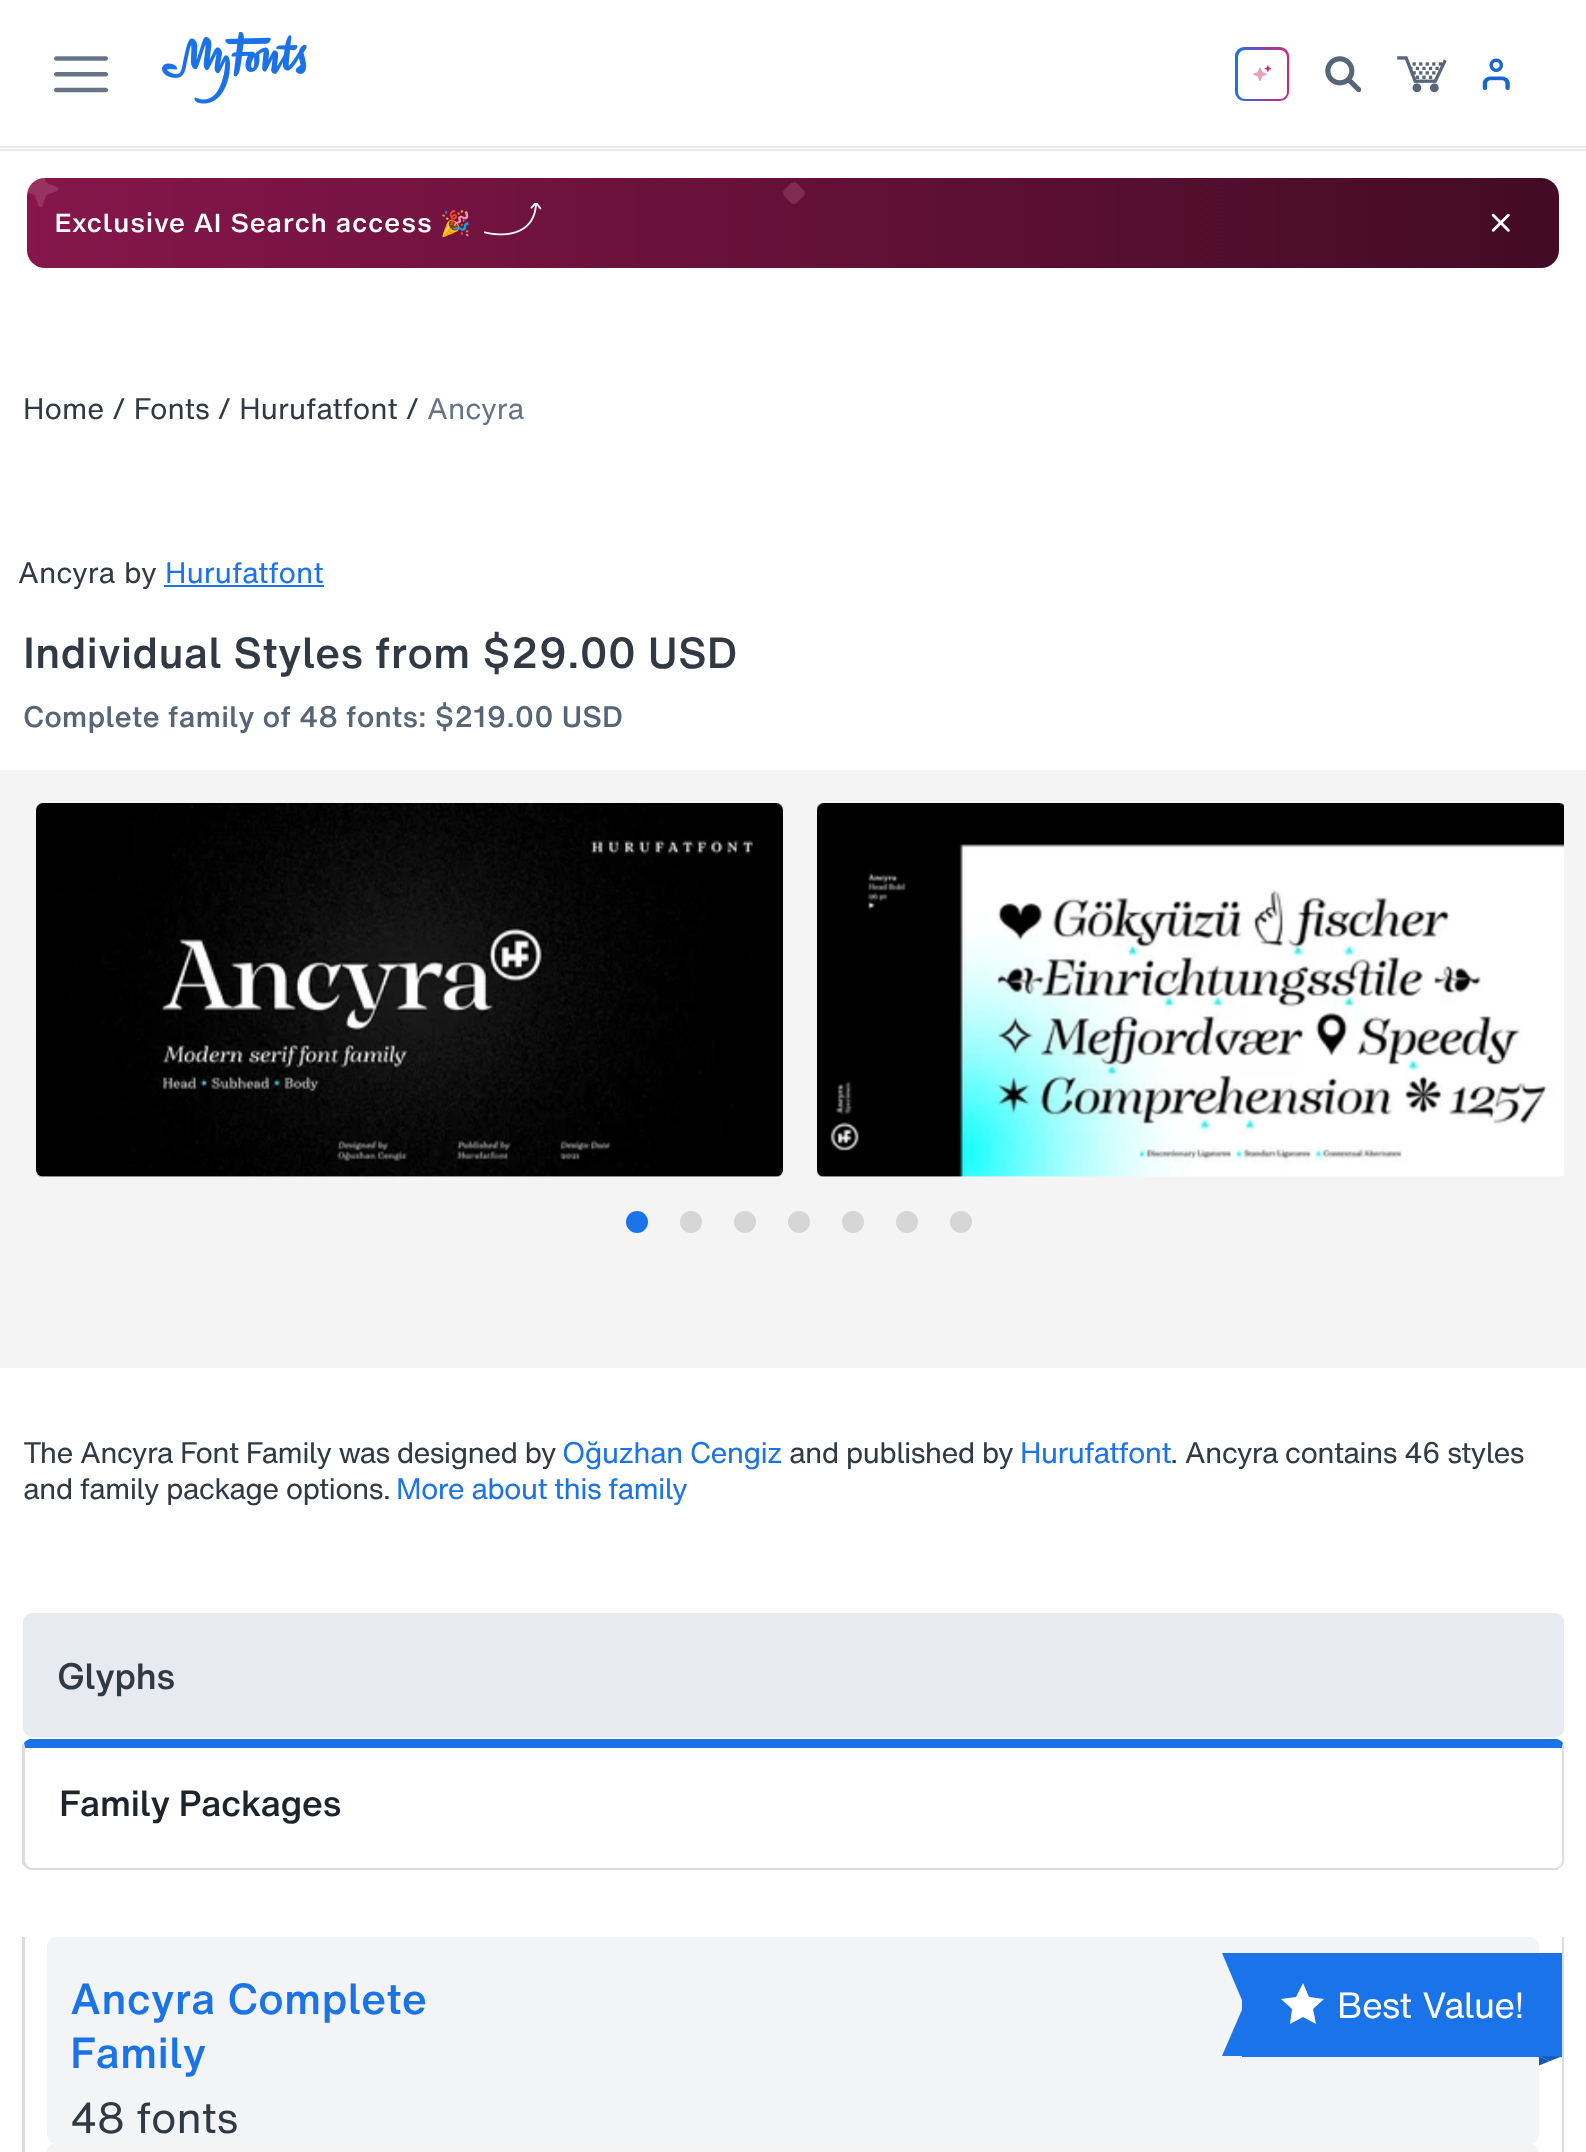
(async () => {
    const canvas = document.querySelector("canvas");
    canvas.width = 1586;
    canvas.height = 2152;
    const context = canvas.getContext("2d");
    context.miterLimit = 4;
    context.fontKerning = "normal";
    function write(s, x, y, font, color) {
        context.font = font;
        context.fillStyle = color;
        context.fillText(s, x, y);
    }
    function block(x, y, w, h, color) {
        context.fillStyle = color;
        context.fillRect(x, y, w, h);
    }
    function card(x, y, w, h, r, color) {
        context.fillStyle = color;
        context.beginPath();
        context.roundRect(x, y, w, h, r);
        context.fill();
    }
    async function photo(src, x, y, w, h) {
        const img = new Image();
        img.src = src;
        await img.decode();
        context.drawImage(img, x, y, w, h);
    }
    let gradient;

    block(0, 0, 1586, 2152, "rgb(255, 255, 255)");
    block(0, 149, 1586, 2, "rgb(231, 234, 238)");
    block(0, 146, 1586, 2, "rgb(231, 234, 238)");
    await photo("media/1.png", 54, 56, 54, 37);
    await photo("media/2.png", 162, 32, 145, 72);
    gradient = context.createLinearGradient(1235, 74, 1289, 74);
    gradient.addColorStop(0, "rgb(26, 115, 232)");
    gradient.addColorStop(1, "rgb(213, 35, 119)");
    context.fillStyle = gradient;
    context.beginPath();
    context.roundRect(1235, 47, 54, 54, 9);
    context.fill();
    card(1238, 50, 49, 49, 7, "rgb(255, 255, 255)");
    await photo("media/3.png", 1253, 65, 19, 16);
    await photo("media/4.png", 1325, 56, 36, 36);
    await photo("media/5.png", 1397, 56, 50, 36);
    await photo("media/6.png", 1482, 58, 28, 32);
    gradient = context.createLinearGradient(27, 223, 1559, 223);
    gradient.addColorStop(0, "rgb(134, 22, 75)");
    gradient.addColorStop(1, "rgb(67, 11, 37)");
    context.fillStyle = gradient;
    context.beginPath();
    context.roundRect(27, 178, 1532, 90, 18);
    context.fill();
    await photo("media/7.png", 27, 178, 32, 29);
    await photo("media/8.png", 783, 182, 22, 22);
    context.wordSpacing = "0.5px";
    write("Exclusive AI Search access", 54, 232, "500 24.75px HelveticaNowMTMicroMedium", "rgb(255, 255, 255)");
    context.wordSpacing = "0px";
    write("🎉", 440, 232, "24.75px Noto Color Emoji", "rgb(255, 255, 255)");
    await photo("media/9.png", 484, 203, 58, 33);
    await photo("media/10.png", 1491, 213, 19, 19);
    write("Home / Fonts / Hurufatfont /", 23, 419, "29.25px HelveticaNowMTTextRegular", "rgb(49, 57, 69)");
    write("Ancyra", 427, 419, "29.25px HelveticaNowMTTextRegular", "rgb(102, 116, 136)");
    write("Ancyra", 18, 583, "29.25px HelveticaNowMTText", "rgb(49, 57, 69)");
    write("by", 124, 583, "29.25px HelveticaNowMTText", "rgb(49, 57, 69)");
    write("Hurufatfont", 165, 583, "29.25px HelveticaNowMTText", "rgb(26, 115, 232)");
    block(164, 585, 160, 2, "rgb(26, 115, 232)");
    write("Individual Styles from $29.00 USD", 23, 668, "500 42.75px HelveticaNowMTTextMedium", "rgb(49, 57, 69)");
    write("Complete family of 48 fonts: $219.00 USD", 23, 727, "500 29.25px HelveticaNowMTTextMedium", "rgb(87, 101, 121)");
    block(0, 770, 1586, 598, "rgb(244, 244, 244)");
    await photo("media/11.png", 36, 803, 747, 374);
    await photo("media/12.png", 817, 803, 747, 374);
    context.fillStyle = "rgb(26, 115, 232)";
    context.beginPath();
    context.arc(637, 1222, 11, 0, Math.PI * 2);
    context.fill();
    context.fillStyle = "rgb(214, 214, 214)";
    context.beginPath();
    context.arc(691, 1222, 11, 0, Math.PI * 2);
    context.fill();
    context.beginPath();
    context.arc(745, 1222, 11, 0, Math.PI * 2);
    context.fill();
    context.beginPath();
    context.arc(799, 1222, 11, 0, Math.PI * 2);
    context.fill();
    context.beginPath();
    context.arc(853, 1222, 11, 0, Math.PI * 2);
    context.fill();
    context.beginPath();
    context.arc(907, 1222, 11, 0, Math.PI * 2);
    context.fill();
    context.beginPath();
    context.arc(961, 1222, 11, 0, Math.PI * 2);
    context.fill();
    context.letterSpacing = "-0.7px";
    write("The Ancyra Font Family was designed by", 23, 1463, "29.25px HelveticaNowMTTextRegular", "rgb(49, 57, 69)");
    write("Oğuzhan Cengiz", 562, 1463, "29.25px HelveticaNowMTTextRegular", "rgb(26, 115, 232)");
    write("and published by", 789, 1463, "29.25px HelveticaNowMTTextRegular", "rgb(49, 57, 69)");
    write("Hurufatfont", 1020, 1463, "29.25px HelveticaNowMTTextRegular", "rgb(26, 115, 232)");
    write(". Ancyra contains 46 styles", 1170, 1463, "29.25px HelveticaNowMTTextRegular", "rgb(49, 57, 69)");
    write("and family package options.", 23, 1499, "29.25px HelveticaNowMTTextRegular", "rgb(49, 57, 69)");
    write("More about this family", 396, 1499, "29.25px HelveticaNowMTTextRegular", "rgb(26, 115, 232)");
    card(23, 1613, 1541, 124, 9, "rgb(231, 234, 238)");
    write("Glyphs", 57, 1689, "500 36px HelveticaNowMTTextMedium", "rgb(49, 57, 69)");
    context.fillStyle = "rgb(26, 115, 232)";
    context.beginPath();
    context.moveTo(24, 1743);
    context.bezierCurveTo(25, 1741, 27, 1740, 30, 1739);
    context.lineTo(1557, 1739);
    context.bezierCurveTo(1560, 1740, 1562, 1741, 1563, 1743);
    context.lineTo(1562, 1748);
    context.lineTo(25, 1748);
    context.lineTo(25, 1749);
    context.closePath();
    context.fill();
    context.fillStyle = "rgb(221, 221, 221)";
    context.beginPath();
    context.moveTo(1564, 1863);
    context.lineTo(1561, 1867);
    context.lineTo(1560, 1866);
    context.lineTo(1562, 1862);
    context.lineTo(1562, 1748);
    context.lineTo(1563, 1743);
    context.lineTo(1564, 1746);
    context.closePath();
    context.fill();
    context.beginPath();
    context.moveTo(30, 1870);
    context.lineTo(25, 1867);
    context.lineTo(27, 1865);
    context.bezierCurveTo(28, 1867, 30, 1868, 32, 1868);
    context.lineTo(1555, 1868);
    context.bezierCurveTo(1556, 1868, 1558, 1867, 1560, 1866);
    context.lineTo(1561, 1867);
    context.lineTo(1557, 1870);
    context.closePath();
    context.fill();
    context.beginPath();
    context.moveTo(22, 1745);
    context.lineTo(24, 1743);
    context.lineTo(25, 1749);
    context.lineTo(25, 1861);
    context.bezierCurveTo(25, 1862, 26, 1864, 27, 1865);
    context.lineTo(25, 1867);
    context.lineTo(22, 1864);
    context.closePath();
    context.fill();
    write("Family Packages", 59, 1816, "500 36px HelveticaNowMTTextMedium", "rgb(30, 36, 44)");
    context.fillStyle = "rgb(221, 221, 221)";
    context.beginPath();
    context.moveTo(22, 1937);
    context.lineTo(1564, 1937);
    context.lineTo(1564, 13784);
    context.bezierCurveTo(1564, 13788, 1560, 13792, 1555, 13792);
    context.lineTo(32, 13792);
    context.bezierCurveTo(27, 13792, 22, 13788, 22, 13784);
    context.closePath();
    context.moveTo(25, 1937);
    context.lineTo(1562, 1937);
    context.lineTo(1562, 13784);
    context.bezierCurveTo(1562, 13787, 1558, 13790, 1555, 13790);
    context.lineTo(32, 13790);
    context.bezierCurveTo(28, 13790, 25, 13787, 25, 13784);
    context.closePath();
    context.fill("evenodd");
    card(47, 1937, 1492, 207, 9, "rgb(243, 244, 246)");
    context.letterSpacing = "0px";
    write("Ancyra Complete", 70, 2014, "500 42.75px HelveticaNowMTTextMedium", "rgb(26, 115, 232)");
    write("Family", 70, 2068, "500 42.75px HelveticaNowMTTextMedium", "rgb(26, 115, 232)");
    block(1242, 1953, 320, 104, "rgb(26, 115, 232)");
    context.beginPath();
    context.moveTo(1222, 1953);
    context.lineTo(1244, 1953);
    context.lineTo(1244, 2005);
    context.closePath();
    context.fill();
    context.beginPath();
    context.moveTo(1244, 2056);
    context.lineTo(1222, 2056);
    context.lineTo(1244, 2005);
    context.closePath();
    context.fill();
    context.fillStyle = "rgb(255, 255, 255)";
    context.beginPath();
    context.moveTo(1303, 1983);
    context.lineTo(1309, 1997);
    context.lineTo(1324, 1999);
    context.lineTo(1313, 2009);
    context.lineTo(1316, 2024);
    context.lineTo(1303, 2017);
    context.lineTo(1290, 2024);
    context.lineTo(1292, 2009);
    context.lineTo(1281, 1999);
    context.lineTo(1296, 1997);
    context.closePath();
    context.fill();
    context.letterSpacing = "-0.7px";
    context.wordSpacing = "2px";
    write("Best Value!", 1337, 2018, "36px HelveticaNowMTText", "rgb(255, 255, 255)");
    context.fillStyle = "rgb(20, 89, 179)";
    context.beginPath();
    context.moveTo(1539, 2056.5);
    context.lineTo(1561.5, 2056.5);
    context.lineTo(1550, 2061);
    context.closePath();
    context.fill();
    context.beginPath();
    context.moveTo(1539, 2065.5);
    context.lineTo(1539, 2056.5);
    context.lineTo(1550, 2061);
    context.closePath();
    context.fill();
    context.letterSpacing = "0px";
    context.wordSpacing = "0px";
    write("48 fonts", 70, 2133, "42.75px HelveticaNowMTText", "rgb(49, 57, 69)");
    card(47, 2144, 1492, 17, 9, "rgb(244, 244, 244)");
})();
